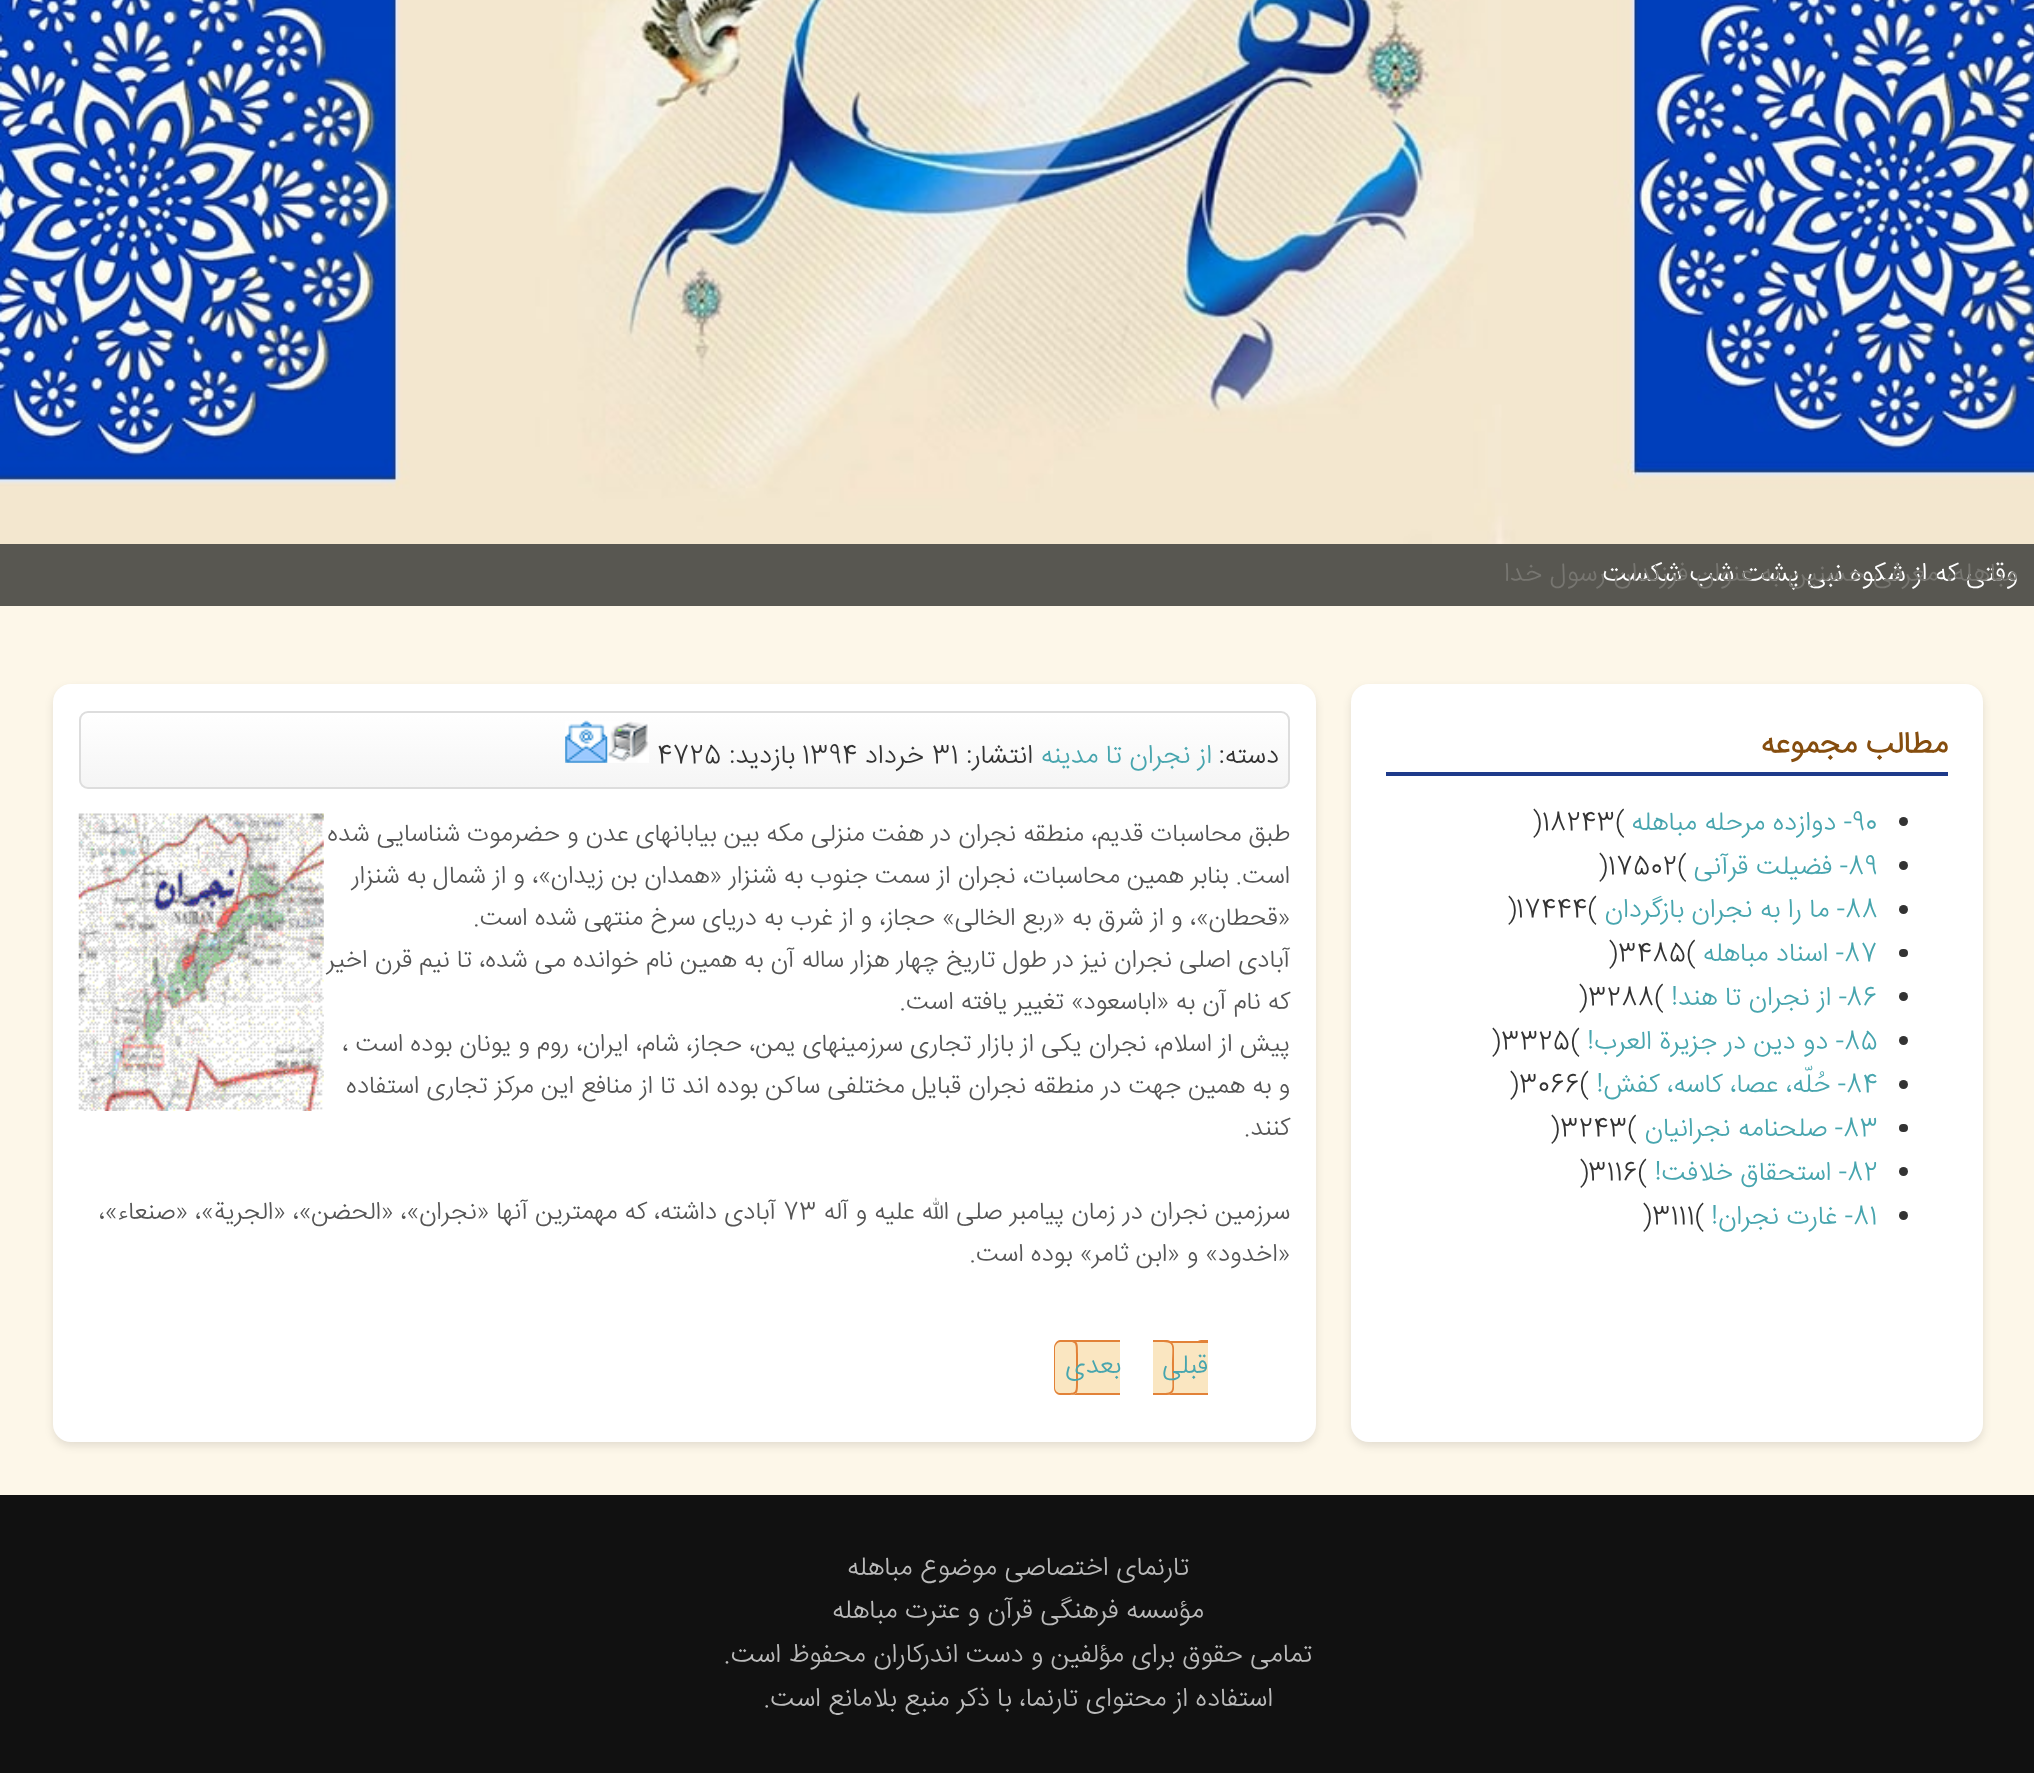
(async () => {
    const canvas = document.querySelector("canvas");
    canvas.width = 2034;
    canvas.height = 1773;
    const context = canvas.getContext("2d");
    context.miterLimit = 4;
    context.fontKerning = "normal";
    function write(s, x, y, font, color) {
        context.font = font;
        context.fillStyle = color;
        context.fillText(s, x, y);
    }
    function block(x, y, w, h, color) {
        context.fillStyle = color;
        context.fillRect(x, y, w, h);
    }
    function card(x, y, w, h, r, color) {
        context.fillStyle = color;
        context.beginPath();
        context.roundRect(x, y, w, h, r);
        context.fill();
    }
    async function photo(src, x, y, w, h) {
        const img = new Image();
        img.src = src;
        await img.decode();
        context.drawImage(img, x, y, w, h);
    }
    let gradient;

    block(0, 0, 2034, 1773, "rgb(253, 247, 233)");
    block(0, 544, 2034, 62, "rgb(88, 87, 81)");
    context.direction = "rtl";
    write("وقتی که از شکوه نبی پشت شب شکست", 2018, 581, "300 26.6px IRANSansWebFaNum", "rgb(255, 255, 255)");
    write("مباهله، معرفی حسنین به عنوان فرزندان رسول خدا", 2018, 581, "300 26.6px IRANSansWebFaNum", "rgb(119, 118, 113)");
    await photo("media/1.png", 0, 0, 2034, 544);
    context.fillStyle = "rgba(0, 0, 0, 0.1)";
    context.filter = "blur(4.5px)";
    context.beginPath();
    context.roundRect(1351, 688, 632, 758, 18);
    context.fill();
    context.filter = "none";
    card(1351, 684, 632, 758, 18, "rgb(255, 255, 255)");
    block(1386, 772, 562, 4, "rgb(30, 58, 138)");
    write("مطالب مجموعه", 1948, 753, "bold 31px IRANSansWebFaNum", "rgb(133, 77, 14)");
    context.fillStyle = "rgb(51, 51, 51)";
    context.beginPath();
    context.arc(1903.5, 821.5, 4.5, 0, Math.PI * 2);
    context.fill();
    context.direction = "ltr";
    write("90", 1852, 830, "300 26.6px IRANSansWebFaNum", "rgb(71, 165, 174)");
    context.direction = "rtl";
    write("- دوازده مرحله مباهله", 1852, 830, "300 26.6px IRANSansWebFaNum", "rgb(71, 165, 174)");
    context.direction = "ltr";
    write("18243(", 1542, 830, "300 26.6px IRANSansWebFaNum", "rgb(51, 51, 51)");
    write(")", 1532, 830, "300 26.6px IRANSansWebFaNum", "rgb(51, 51, 51)");
    context.beginPath();
    context.arc(1903.5, 865.5, 4.5, 0, Math.PI * 2);
    context.fill();
    write("89", 1848, 874, "300 26.6px IRANSansWebFaNum", "rgb(71, 165, 174)");
    context.direction = "rtl";
    write("- فضیلت قرآنی", 1848, 874, "300 26.6px IRANSansWebFaNum", "rgb(71, 165, 174)");
    context.direction = "ltr";
    write("17502(", 1608, 874, "300 26.6px IRANSansWebFaNum", "rgb(51, 51, 51)");
    write(")", 1598, 874, "300 26.6px IRANSansWebFaNum", "rgb(51, 51, 51)");
    context.beginPath();
    context.arc(1903.5, 909.5, 4.5, 0, Math.PI * 2);
    context.fill();
    write("88", 1845, 917, "300 26.6px IRANSansWebFaNum", "rgb(71, 165, 174)");
    context.direction = "rtl";
    write("- ما را به نجران بازگردان", 1845, 917, "300 26.6px IRANSansWebFaNum", "rgb(71, 165, 174)");
    context.direction = "ltr";
    write("17444(", 1516, 917, "300 26.6px IRANSansWebFaNum", "rgb(51, 51, 51)");
    write(")", 1507, 917, "300 26.6px IRANSansWebFaNum", "rgb(51, 51, 51)");
    card(1899, 949, 9, 8, 4, "rgb(51, 51, 51)");
    write("87", 1844, 961, "300 26.6px IRANSansWebFaNum", "rgb(71, 165, 174)");
    context.direction = "rtl";
    write("- اسناد مباهله", 1844, 961, "300 26.6px IRANSansWebFaNum", "rgb(71, 165, 174)");
    context.direction = "ltr";
    write("3485(", 1618, 961, "300 26.6px IRANSansWebFaNum", "rgb(51, 51, 51)");
    write(")", 1608, 961, "300 26.6px IRANSansWebFaNum", "rgb(51, 51, 51)");
    context.beginPath();
    context.arc(1903.5, 996.5, 4.5, 0, Math.PI * 2);
    context.fill();
    write("86", 1846, 1005, "300 26.6px IRANSansWebFaNum", "rgb(71, 165, 174)");
    context.direction = "rtl";
    write("- از نجران تا هند!", 1847, 1005, "300 26.6px IRANSansWebFaNum", "rgb(71, 165, 174)");
    context.direction = "ltr";
    write("3288(", 1588, 1005, "300 26.6px IRANSansWebFaNum", "rgb(51, 51, 51)");
    write(")", 1578, 1005, "300 26.6px IRANSansWebFaNum", "rgb(51, 51, 51)");
    context.beginPath();
    context.arc(1903.5, 1040.5, 4.5, 0, Math.PI * 2);
    context.fill();
    write("85", 1844, 1049, "300 26.6px IRANSansWebFaNum", "rgb(71, 165, 174)");
    context.direction = "rtl";
    write("- دو دين در جزيرة العرب!", 1844, 1049, "300 26.6px IRANSansWebFaNum", "rgb(71, 165, 174)");
    context.direction = "ltr";
    write("3325(", 1501, 1049, "300 26.6px IRANSansWebFaNum", "rgb(51, 51, 51)");
    write(")", 1491, 1049, "300 26.6px IRANSansWebFaNum", "rgb(51, 51, 51)");
    context.beginPath();
    context.arc(1903.5, 1084.5, 4.5, 0, Math.PI * 2);
    context.fill();
    write("84", 1846, 1092, "300 26.6px IRANSansWebFaNum", "rgb(71, 165, 174)");
    context.direction = "rtl";
    write("- حُلّه، عصا، كاسه، كفش!", 1846, 1092, "300 26.6px IRANSansWebFaNum", "rgb(71, 165, 174)");
    context.direction = "ltr";
    write("3066(", 1519, 1092, "300 26.6px IRANSansWebFaNum", "rgb(51, 51, 51)");
    write(")", 1509, 1092, "300 26.6px IRANSansWebFaNum", "rgb(51, 51, 51)");
    card(1899, 1124, 9, 8, 4, "rgb(51, 51, 51)");
    write("83", 1843, 1136, "300 26.6px IRANSansWebFaNum", "rgb(71, 165, 174)");
    context.direction = "rtl";
    write("- صلحنامه نجرانيان", 1843, 1136, "300 26.6px IRANSansWebFaNum", "rgb(71, 165, 174)");
    context.direction = "ltr";
    write("3243(", 1560, 1136, "300 26.6px IRANSansWebFaNum", "rgb(51, 51, 51)");
    write(")", 1550, 1136, "300 26.6px IRANSansWebFaNum", "rgb(51, 51, 51)");
    context.beginPath();
    context.arc(1903.5, 1171.5, 4.5, 0, Math.PI * 2);
    context.fill();
    write("82", 1847, 1180, "300 26.6px IRANSansWebFaNum", "rgb(71, 165, 174)");
    context.direction = "rtl";
    write("- استحقاق خلافت!", 1847, 1180, "300 26.6px IRANSansWebFaNum", "rgb(71, 165, 174)");
    context.direction = "ltr";
    write("3116(", 1588, 1180, "300 26.6px IRANSansWebFaNum", "rgb(51, 51, 51)");
    write(")", 1579, 1180, "300 26.6px IRANSansWebFaNum", "rgb(51, 51, 51)");
    context.beginPath();
    context.arc(1903.5, 1215.5, 4.5, 0, Math.PI * 2);
    context.fill();
    write("81", 1853, 1224, "300 26.6px IRANSansWebFaNum", "rgb(71, 165, 174)");
    context.direction = "rtl";
    write("- غارت نجران!", 1853, 1224, "300 26.6px IRANSansWebFaNum", "rgb(71, 165, 174)");
    context.direction = "ltr";
    write("3111(", 1652, 1224, "300 26.6px IRANSansWebFaNum", "rgb(51, 51, 51)");
    write(")", 1642, 1224, "300 26.6px IRANSansWebFaNum", "rgb(51, 51, 51)");
    context.fillStyle = "rgba(0, 0, 0, 0.1)";
    context.filter = "blur(4.5px)";
    context.beginPath();
    context.roundRect(53, 688, 1263, 758, 18);
    context.fill();
    context.filter = "none";
    card(53, 684, 1263, 758, 18, "rgb(255, 255, 255)");
    context.save();
    context.beginPath();
    context.roundRect(79, 711, 1211, 78, 9);
    context.clip();
    gradient = context.createLinearGradient(684, 712, 684, 788);
    gradient.addColorStop(0, "rgb(255, 255, 255)");
    gradient.addColorStop(1, "rgb(245, 245, 245)");
    context.fillStyle = gradient;
    context.fillRect(79, 712, 1211, 76);
    context.restore();
    context.beginPath();
    context.roundRect(80, 712, 1209, 76, 8);
    context.strokeStyle = "rgb(221, 221, 221)";
    context.lineWidth = 2;
    context.stroke();
    context.direction = "rtl";
    write("دسته:", 1279, 763, "300 26.6px IRANSansWebFaNum", "rgb(51, 51, 51)");
    write("از نجران تا مدینه", 1212, 763, "300 26.6px IRANSansWebFaNum", "rgb(71, 165, 174)");
    write("انتشار:", 1033, 763, "300 26.6px IRANSansWebFaNum", "rgb(51, 51, 51)");
    context.direction = "ltr";
    write("31", 932, 763, "300 26.6px IRANSansWebFaNum", "rgb(51, 51, 51)");
    context.direction = "rtl";
    write("خرداد", 924, 763, "300 26.6px IRANSansWebFaNum", "rgb(51, 51, 51)");
    context.direction = "ltr";
    write("1394", 802, 763, "300 26.6px IRANSansWebFaNum", "rgb(51, 51, 51)");
    context.direction = "rtl";
    write("بازدید:", 795, 763, "300 26.6px IRANSansWebFaNum", "rgb(51, 51, 51)");
    context.direction = "ltr";
    write("4725", 657, 763, "300 26.6px IRANSansWebFaNum", "rgb(51, 51, 51)");
    await photo("media/2.png", 607, 721, 42, 42);
    await photo("media/3.png", 565, 720, 43, 43);
    context.direction = "rtl";
    write("طبق محاسبات قديم، منطقه نجران در هفت منزلى مكه بين بيابانهاى عدن و حضرموت شناسايى شده", 1290, 841, "300 25.2px IRANSansWebFaNum", "rgb(85, 85, 85)");
    await photo("media/4.png", 78, 813, 246, 298);
    write("است. بنابر همين محاسبات، نجران از سمت جنوب به شنزار «همدان بن زيدان»، و از شمال به شنزار", 1290, 883, "300 25.2px IRANSansWebFaNum", "rgb(85, 85, 85)");
    write("«قحطان»، و از شرق به «ربع الخالى» حجاز، و از غرب به درياى سرخ منتهى شده است.", 1290, 925, "300 25.2px IRANSansWebFaNum", "rgb(85, 85, 85)");
    write("آبادى اصلى نجران نيز در طول تاريخ چهار هزار ساله آن به همين نام خوانده مى شده، تا نيم قرن اخير", 1290, 967, "300 25.2px IRANSansWebFaNum", "rgb(85, 85, 85)");
    write("كه نام آن به «اباسعود» تغيير يافته است.", 1290, 1009, "300 25.2px IRANSansWebFaNum", "rgb(85, 85, 85)");
    write("پيش از اسلام، نجران يكى از بازار تجارى سرزمينهاى يمن، حجاز، شام، ايران، روم و يونان بوده است ،", 1290, 1051, "300 25.2px IRANSansWebFaNum", "rgb(85, 85, 85)");
    write("و به همين جهت در منطقه نجران قبايل مختلفى ساكن بوده اند تا از منافع اين مركز تجارى استفاده", 1290, 1093, "300 25.2px IRANSansWebFaNum", "rgb(85, 85, 85)");
    write("كنند.", 1290, 1135, "300 25.2px IRANSansWebFaNum", "rgb(85, 85, 85)");
    write("سرزمين نجران در زمان پيامبر صلى الله عليه و آله", 1290, 1219, "300 25.2px IRANSansWebFaNum", "rgb(85, 85, 85)");
    context.direction = "ltr";
    write("73", 783, 1219, "300 25.2px IRANSansWebFaNum", "rgb(85, 85, 85)");
    context.direction = "rtl";
    write("آبادى داشته، كه مهمترين آنها «نجران»، «الحضن»، «الجرية»، «صنعاء»،", 776, 1219, "300 25.2px IRANSansWebFaNum", "rgb(85, 85, 85)");
    write("«اخدود» و «ابن ثامر» بوده است.", 1290, 1261, "300 25.2px IRANSansWebFaNum", "rgb(85, 85, 85)");
    context.fillStyle = "rgb(226, 130, 56)";
    context.beginPath();
    context.moveTo(1201, 1340);
    context.lineTo(1208, 1340);
    context.lineTo(1208, 1395);
    context.lineTo(1201, 1395);
    context.bezierCurveTo(1198, 1395, 1195, 1392, 1195, 1389);
    context.lineTo(1195, 1347);
    context.bezierCurveTo(1195, 1343, 1198, 1340, 1201, 1340);
    context.closePath();
    context.moveTo(1201, 1342);
    context.lineTo(1208, 1342);
    context.lineTo(1208, 1393);
    context.lineTo(1201, 1393);
    context.bezierCurveTo(1199, 1393, 1197, 1391, 1197, 1389);
    context.lineTo(1197, 1347);
    context.bezierCurveTo(1197, 1344, 1199, 1342, 1201, 1342);
    context.closePath();
    context.fill("evenodd");
    block(1172, 1343, 36, 50, "rgb(250, 230, 193)");
    block(1162, 1341, 46, 2, "rgb(226, 130, 56)");
    block(1162, 1393, 46, 2, "rgb(226, 130, 56)");
    context.fillStyle = "rgb(250, 230, 193)";
    context.beginPath();
    context.roundRect(1153, 1341, 21, 54, [0, 7, 7, 0]);
    context.fill();
    context.fillStyle = "rgb(226, 130, 56)";
    context.beginPath();
    context.moveTo(1153, 1340);
    context.lineTo(1167, 1340);
    context.bezierCurveTo(1171, 1340, 1174, 1344, 1174, 1348);
    context.lineTo(1174, 1388);
    context.bezierCurveTo(1174, 1392, 1171, 1395, 1167, 1395);
    context.lineTo(1153, 1395);
    context.closePath();
    context.moveTo(1153, 1342);
    context.bezierCurveTo(1177, 1342, 1172, 1341, 1172, 1368);
    context.bezierCurveTo(1172, 1395, 1177, 1393, 1153, 1393);
    context.closePath();
    context.fill("evenodd");
    write("قبلی", 1208, 1373, "300 26.6px IRANSansWebFaNum", "rgb(71, 165, 174)");
    context.fillStyle = "rgb(250, 230, 193)";
    context.beginPath();
    context.roundRect(1054, 1341, 66, 54, [7, 0, 0, 7]);
    context.fill();
    context.fillStyle = "rgb(226, 130, 56)";
    context.beginPath();
    context.moveTo(1060, 1340);
    context.lineTo(1120, 1340);
    context.lineTo(1120, 1395);
    context.lineTo(1060, 1395);
    context.bezierCurveTo(1057, 1395, 1054, 1392, 1054, 1388);
    context.lineTo(1054, 1348);
    context.bezierCurveTo(1054, 1344, 1057, 1340, 1060, 1340);
    context.closePath();
    context.moveTo(1060, 1342);
    context.lineTo(1120, 1342);
    context.lineTo(1120, 1393);
    context.lineTo(1060, 1393);
    context.bezierCurveTo(1058, 1393, 1055, 1391, 1055, 1388);
    context.lineTo(1055, 1348);
    context.bezierCurveTo(1055, 1345, 1058, 1342, 1060, 1342);
    context.closePath();
    context.fill("evenodd");
    context.fillStyle = "rgb(250, 230, 193)";
    context.beginPath();
    context.roundRect(1066, 1341, 12, 54, [0, 6, 6, 0]);
    context.fill();
    context.fillStyle = "rgb(226, 130, 56)";
    context.beginPath();
    context.moveTo(1066, 1340);
    context.bezierCurveTo(1078, 1340, 1078, 1341, 1078, 1354);
    context.lineTo(1078, 1382);
    context.bezierCurveTo(1078, 1394, 1078, 1395, 1066, 1395);
    context.closePath();
    context.moveTo(1066, 1342);
    context.bezierCurveTo(1076, 1342, 1076, 1342, 1076, 1354);
    context.lineTo(1076, 1382);
    context.bezierCurveTo(1076, 1393, 1076, 1393, 1066, 1393);
    context.closePath();
    context.fill("evenodd");
    write("بعدی", 1121, 1373, "300 26.6px IRANSansWebFaNum", "rgb(71, 165, 174)");
    block(0, 1495, 2034, 278, "rgb(17, 17, 17)");
    write("تارنمای اختصاصی موضوع مباهله", 1189, 1575, "300 26.6px IRANSansWebFaNum", "rgb(187, 187, 187)");
    write("مؤسسه فرهنگی قرآن و عترت مباهله", 1204, 1618, "300 26.6px IRANSansWebFaNum", "rgb(187, 187, 187)");
    write("تمامی حقوق برای مؤلفین و دست اندرکاران محفوظ است.", 1312, 1662, "300 26.6px IRANSansWebFaNum", "rgb(187, 187, 187)");
    write("استفاده از محتوای تارنما، با ذکر منبع بلامانع است.", 1273, 1706, "300 26.6px IRANSansWebFaNum", "rgb(187, 187, 187)");
})();
